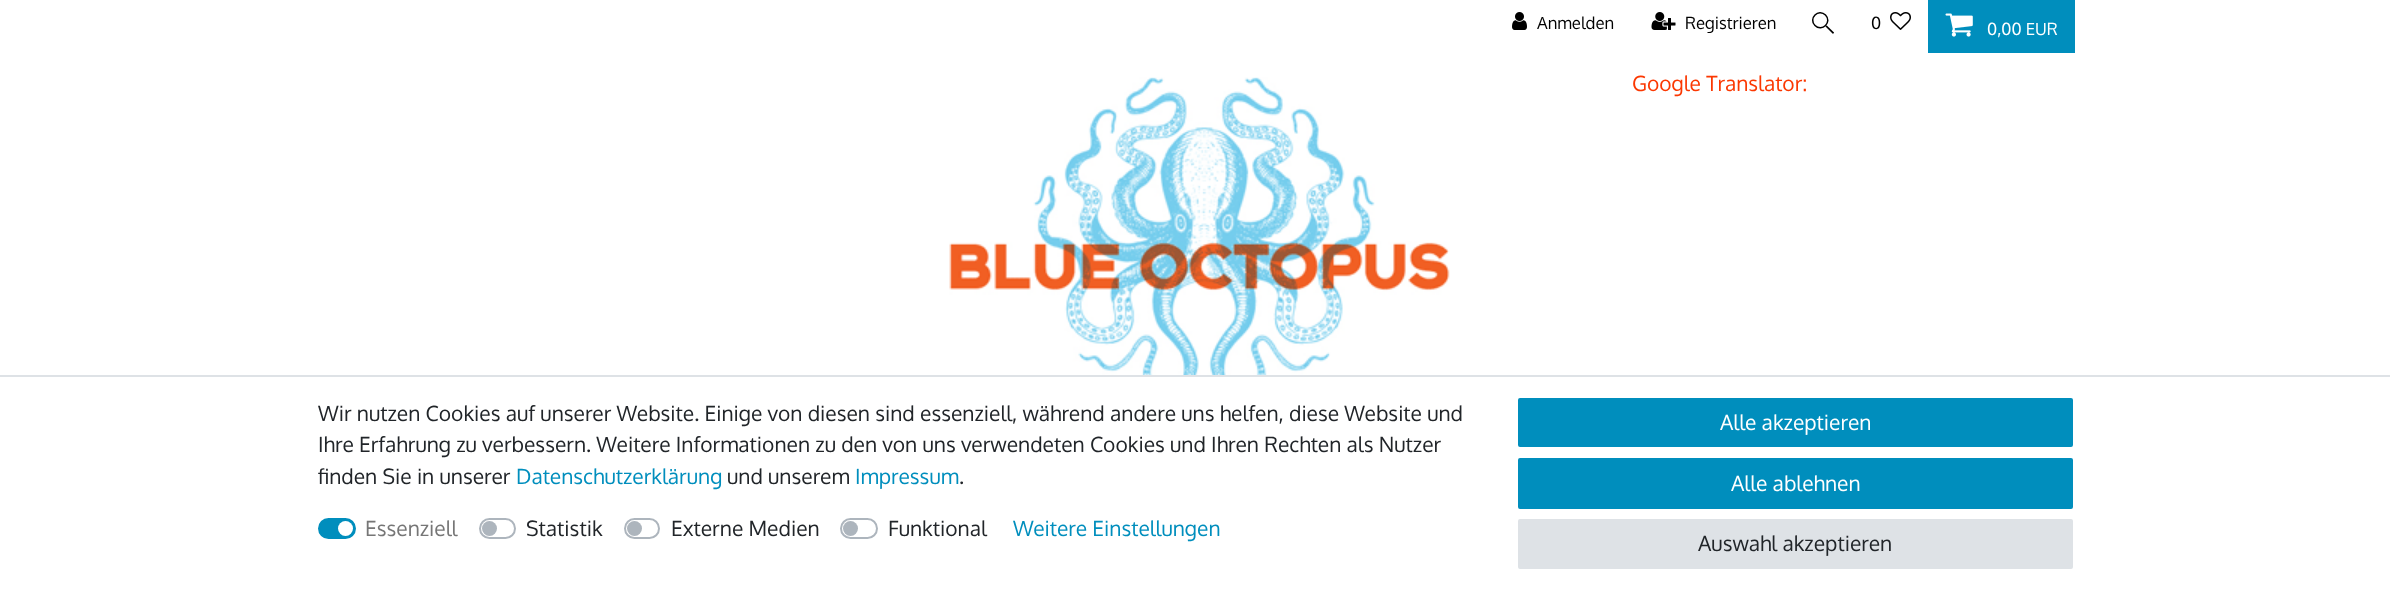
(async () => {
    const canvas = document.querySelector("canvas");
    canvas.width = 2390;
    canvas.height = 599;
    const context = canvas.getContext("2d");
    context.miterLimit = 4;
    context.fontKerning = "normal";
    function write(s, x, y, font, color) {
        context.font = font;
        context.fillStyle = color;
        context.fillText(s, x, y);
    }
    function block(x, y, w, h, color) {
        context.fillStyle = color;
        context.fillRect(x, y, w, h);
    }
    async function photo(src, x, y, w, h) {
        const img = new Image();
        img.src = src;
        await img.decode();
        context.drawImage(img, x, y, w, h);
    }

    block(0, 0, 2390, 599, "rgb(255, 255, 255)");
    await photo("media/1.png", 1512, 12, 15, 18);
    write("Anmelden", 1537, 29, "16.75px Oxygen", "rgb(0, 0, 0)");
    await photo("media/2.png", 1651, 12, 25, 18);
    write("Registrieren", 1685, 29, "16.75px Oxygen", "rgb(0, 0, 0)");
    context.beginPath();
    context.moveTo(1832.5, 33.5);
    context.lineTo(1817.5, 18.5);
    context.lineTo(1817.5, 18);
    context.bezierCurveTo(1817.5, 17.5, 1818, 17.5, 1818.5, 17.5);
    context.lineTo(1834, 32.5);
    context.bezierCurveTo(1834, 33.5, 1833, 34, 1832.5, 33.5);
    context.closePath();
    context.fill();
    context.fillStyle = "rgb(255, 255, 255)";
    context.beginPath();
    context.moveTo(1814.5, 26);
    context.bezierCurveTo(1807, 18.5, 1818.5, 7, 1826, 14.5);
    context.bezierCurveTo(1834, 22, 1822, 34, 1814.5, 26);
    context.closePath();
    context.fill();
    context.beginPath();
    context.moveTo(1815, 25.5);
    context.bezierCurveTo(1808, 18.5, 1818.5, 8, 1825.5, 15);
    context.bezierCurveTo(1832.5, 22, 1822, 32.5, 1815, 25.5);
    context.closePath();
    context.strokeStyle = "rgb(0, 0, 0)";
    context.lineWidth = 1.5;
    context.stroke();
    write("0", 1871, 29, "16.75px Oxygen", "rgb(0, 0, 0)");
    await photo("media/3.png", 1890, 12, 21, 18);
    block(1928, 0, 147, 53, "rgb(0, 142, 189)");
    await photo("media/4.png", 1945, 13, 28, 24);
    write("0,00 EUR", 1987, 35, "16.75px Oxygen", "rgb(255, 255, 255)");
    await photo("media/5.png", 949, 77, 501, 298);
    write("Google Translator:", 1632, 91, "21px Oxygen", "rgb(251, 56, 2)");
    block(0, 375, 2390, 2, "rgb(222, 226, 230)");
    write("Wir nutzen Cookies auf unserer Website. Einige von diesen sind essenziell, während andere uns helfen, diese Website und", 318, 421, "21px Oxygen", "rgb(33, 37, 41)");
    write("Ihre Erfahrung zu verbessern. Weitere Informationen zu den von uns verwendeten Cookies und Ihren Rechten als Nutzer", 318, 452, "21px Oxygen", "rgb(33, 37, 41)");
    write("finden Sie in unserer", 318, 484, "21px Oxygen", "rgb(33, 37, 41)");
    write("Datenschutzerklärung", 516, 484, "21px Oxygen", "rgb(0, 142, 189)");
    write("und unserem", 727, 484, "21px Oxygen", "rgb(33, 37, 41)");
    write("Impressum", 855, 484, "21px Oxygen", "rgb(0, 142, 189)");
    write(".", 959, 484, "21px Oxygen", "rgb(33, 37, 41)");
    context.fillStyle = "rgb(0, 142, 189)";
    context.beginPath();
    context.roundRect(319, 519, 36, 19, 9.5);
    context.fill();
    context.strokeStyle = "rgb(0, 142, 189)";
    context.lineWidth = 2;
    context.stroke();
    write("Essenziell", 365, 536, "21px Oxygen", "rgb(118, 118, 118)");
    context.fillStyle = "rgb(255, 255, 255)";
    context.beginPath();
    context.arc(345.5, 528.5, 7.5, 0, Math.PI * 2);
    context.fill();
    context.beginPath();
    context.roundRect(480, 519, 35, 19, 9.5);
    context.strokeStyle = "rgb(173, 181, 189)";
    context.stroke();
    write("Statistik", 526, 536, "21px Oxygen", "rgb(33, 37, 41)");
    context.fillStyle = "rgb(173, 181, 189)";
    context.beginPath();
    context.arc(489.5, 528.5, 7.5, 0, Math.PI * 2);
    context.fill();
    context.beginPath();
    context.roundRect(625, 519, 34, 19, 9.5);
    context.stroke();
    write("Externe Medien", 671, 536, "21px Oxygen", "rgb(33, 37, 41)");
    context.fillStyle = "rgb(173, 181, 189)";
    context.beginPath();
    context.arc(634.5, 528.5, 7.5, 0, Math.PI * 2);
    context.fill();
    context.beginPath();
    context.roundRect(841, 519, 36, 19, 9.5);
    context.stroke();
    write("Funktional", 888, 536, "21px Oxygen", "rgb(33, 37, 41)");
    context.fillStyle = "rgb(173, 181, 189)";
    context.beginPath();
    context.arc(850.5, 528.5, 7.5, 0, Math.PI * 2);
    context.fill();
    write("Weitere Einstellungen", 1013, 536, "21px Oxygen", "rgb(0, 142, 189)");
    context.beginPath();
    context.roundRect(1519, 399, 553, 47, 1);
    context.fill();
    context.strokeStyle = "rgb(0, 142, 189)";
    context.stroke();
    write("Alle akzeptieren", 1720, 430, "21px Oxygen", "rgb(255, 255, 255)");
    context.fillStyle = "rgb(0, 142, 189)";
    context.beginPath();
    context.roundRect(1519, 459, 553, 49, 1);
    context.fill();
    context.stroke();
    write("Alle ablehnen", 1731, 491, "21px Oxygen", "rgb(255, 255, 255)");
    context.fillStyle = "rgb(222, 226, 230)";
    context.beginPath();
    context.roundRect(1519, 520, 553, 48, 1);
    context.fill();
    context.strokeStyle = "rgb(222, 226, 230)";
    context.stroke();
    write("Auswahl akzeptieren", 1698, 551, "21px Oxygen", "rgb(33, 37, 41)");
})();
